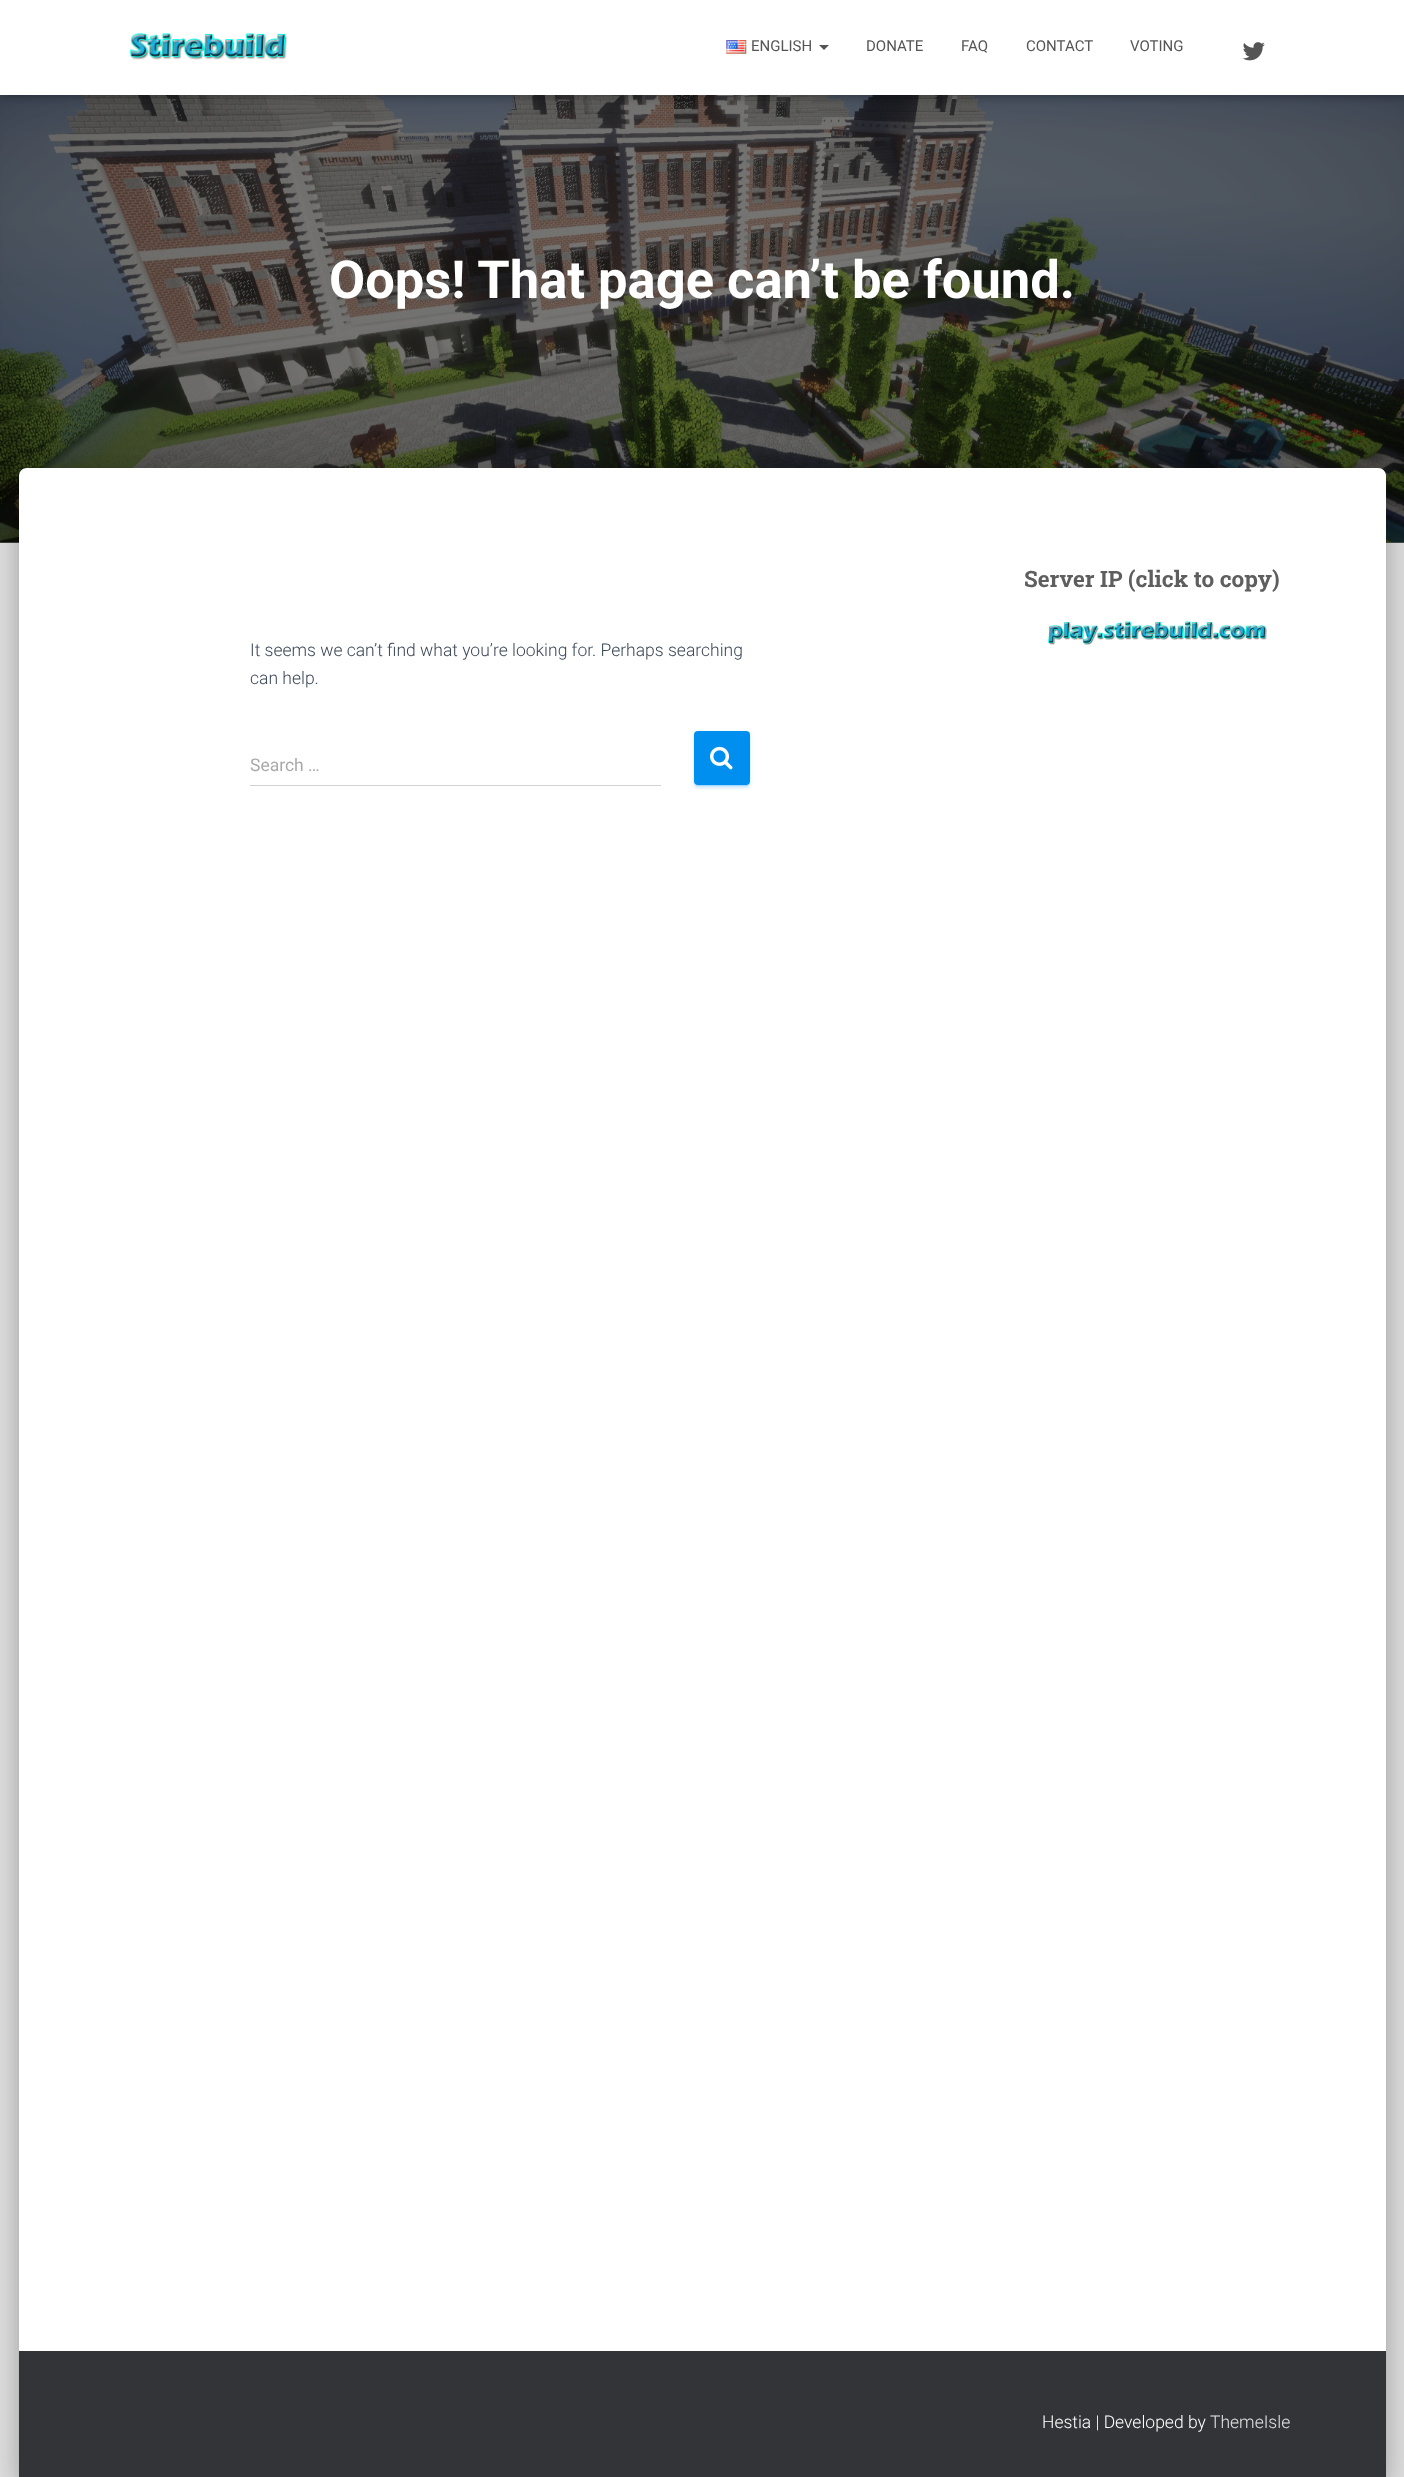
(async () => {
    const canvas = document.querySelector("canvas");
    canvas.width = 1404;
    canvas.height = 2477;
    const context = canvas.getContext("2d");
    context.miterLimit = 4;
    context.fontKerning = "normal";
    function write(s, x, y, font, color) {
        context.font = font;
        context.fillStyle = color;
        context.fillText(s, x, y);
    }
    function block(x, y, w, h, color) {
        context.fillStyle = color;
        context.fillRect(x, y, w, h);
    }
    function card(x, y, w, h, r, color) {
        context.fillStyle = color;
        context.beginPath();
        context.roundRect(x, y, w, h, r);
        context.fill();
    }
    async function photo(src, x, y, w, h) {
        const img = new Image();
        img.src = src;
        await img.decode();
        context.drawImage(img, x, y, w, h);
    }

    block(0, 0, 1404, 2477, "rgb(229, 229, 229)");
    block(0, 542, 1404, 1, "rgb(115, 115, 115)");
    await photo("media/4.png", 0, 95, 1404, 448);
    context.fillStyle = "rgba(0, 0, 0, 0.1)";
    context.filter = "blur(3px)";
    context.beginPath();
    context.rect(3, 8, 1400, 90);
    context.fill();
    context.filter = "none";
    context.fillStyle = "rgba(0, 0, 0, 0.12)";
    context.filter = "blur(6px)";
    context.beginPath();
    context.rect(0, 1, 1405, 95);
    context.fill();
    context.filter = "none";
    context.fillStyle = "rgba(0, 0, 0, 0.42)";
    context.filter = "blur(6px)";
    context.beginPath();
    context.rect(8, 9, 1390, 80);
    context.fill();
    context.filter = "none";
    block(0, 0, 1404, 95, "rgb(255, 255, 255)");
    await photo("media/1.png", 129, 33, 159, 27);
    await photo("media/2.png", 726, 40, 21, 14);
    write("ENGLISH", 751, 51, "15px Roboto", "rgb(85, 85, 85)");
    context.beginPath();
    context.moveTo(819, 45);
    context.lineTo(829, 45);
    context.lineTo(824, 50);
    context.closePath();
    context.fill();
    write("DONATE", 866, 51, "15px Roboto", "rgb(85, 85, 85)");
    write("FAQ", 961, 51, "15px Roboto", "rgb(85, 85, 85)");
    write("CONTACT", 1026, 51, "15px Roboto", "rgb(85, 85, 85)");
    write("VOTING", 1130, 51, "15px Roboto", "rgb(85, 85, 85)");
    await photo("media/3.png", 1242, 42, 23, 19);
    write("Oops! That page can’t be found.", 329, 298, "bold 52.5px Roboto", "rgb(255, 255, 255)");
    context.fillStyle = "rgba(0, 0, 0, 0.2)";
    context.filter = "blur(6px)";
    context.beginPath();
    context.roundRect(25, 484, 1355, 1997, 1);
    context.fill();
    context.filter = "none";
    context.fillStyle = "rgba(0, 0, 0, 0.12)";
    context.filter = "blur(19px)";
    context.beginPath();
    context.roundRect(13, 469, 1380, 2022, 14);
    context.fill();
    context.filter = "none";
    context.fillStyle = "rgba(0, 0, 0, 0.14)";
    context.filter = "blur(15px)";
    context.beginPath();
    context.roundRect(16, 485, 1373, 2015, 10);
    context.fill();
    context.filter = "none";
    context.fillStyle = "rgb(255, 255, 255)";
    context.beginPath();
    context.moveTo(27, 468);
    context.lineTo(1378, 468);
    context.bezierCurveTo(1382.5, 468, 1386, 471.5, 1386, 476);
    context.lineTo(1386, 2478);
    context.lineTo(19, 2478);
    context.lineTo(19, 476);
    context.bezierCurveTo(19, 471.5, 22.5, 468, 27, 468);
    context.closePath();
    context.fill();
    write("Server IP (click to copy)", 1024, 587, "bold 22.5px Roboto Slab", "rgb(94, 94, 94)");
    await photo("media/5.png", 1048, 621, 219, 24);
    write("It seems we can’t find what you’re looking for. Perhaps searching", 250, 656, "300 17.5px Roboto", "rgb(60, 72, 88)");
    write("can help.", 250, 684, "300 17.5px Roboto", "rgb(60, 72, 88)");
    write("Search …", 250, 771, "17.5px Roboto", "rgb(170, 170, 170)");
    block(250, 785, 411, 1, "rgb(210, 210, 210)");
    context.fillStyle = "rgba(0, 143, 239, 0.12)";
    context.filter = "blur(3px)";
    context.beginPath();
    context.roundRect(694, 733, 56, 53, 4);
    context.fill();
    context.filter = "none";
    context.fillStyle = "rgba(0, 143, 239, 0.2)";
    context.filter = "blur(0.5px)";
    context.beginPath();
    context.roundRect(696, 738, 52, 48, 1);
    context.fill();
    context.filter = "none";
    context.fillStyle = "rgba(0, 143, 239, 0.14)";
    context.filter = "blur(1px)";
    context.beginPath();
    context.roundRect(694, 734, 56, 54, 4);
    context.fill();
    context.filter = "none";
    card(694, 731, 56, 54, 4, "rgb(0, 143, 239)");
    await photo("media/6.png", 710, 746, 23, 24);
    block(19, 2351, 1367, 126, "rgb(50, 52, 55)");
    write("Hestia | Developed by", 1042, 2428, "300 17.5px Roboto", "rgb(255, 255, 255)");
    write("ThemeIsle", 1210, 2428, "300 17.5px Roboto", "rgb(226, 227, 227)");
})();
